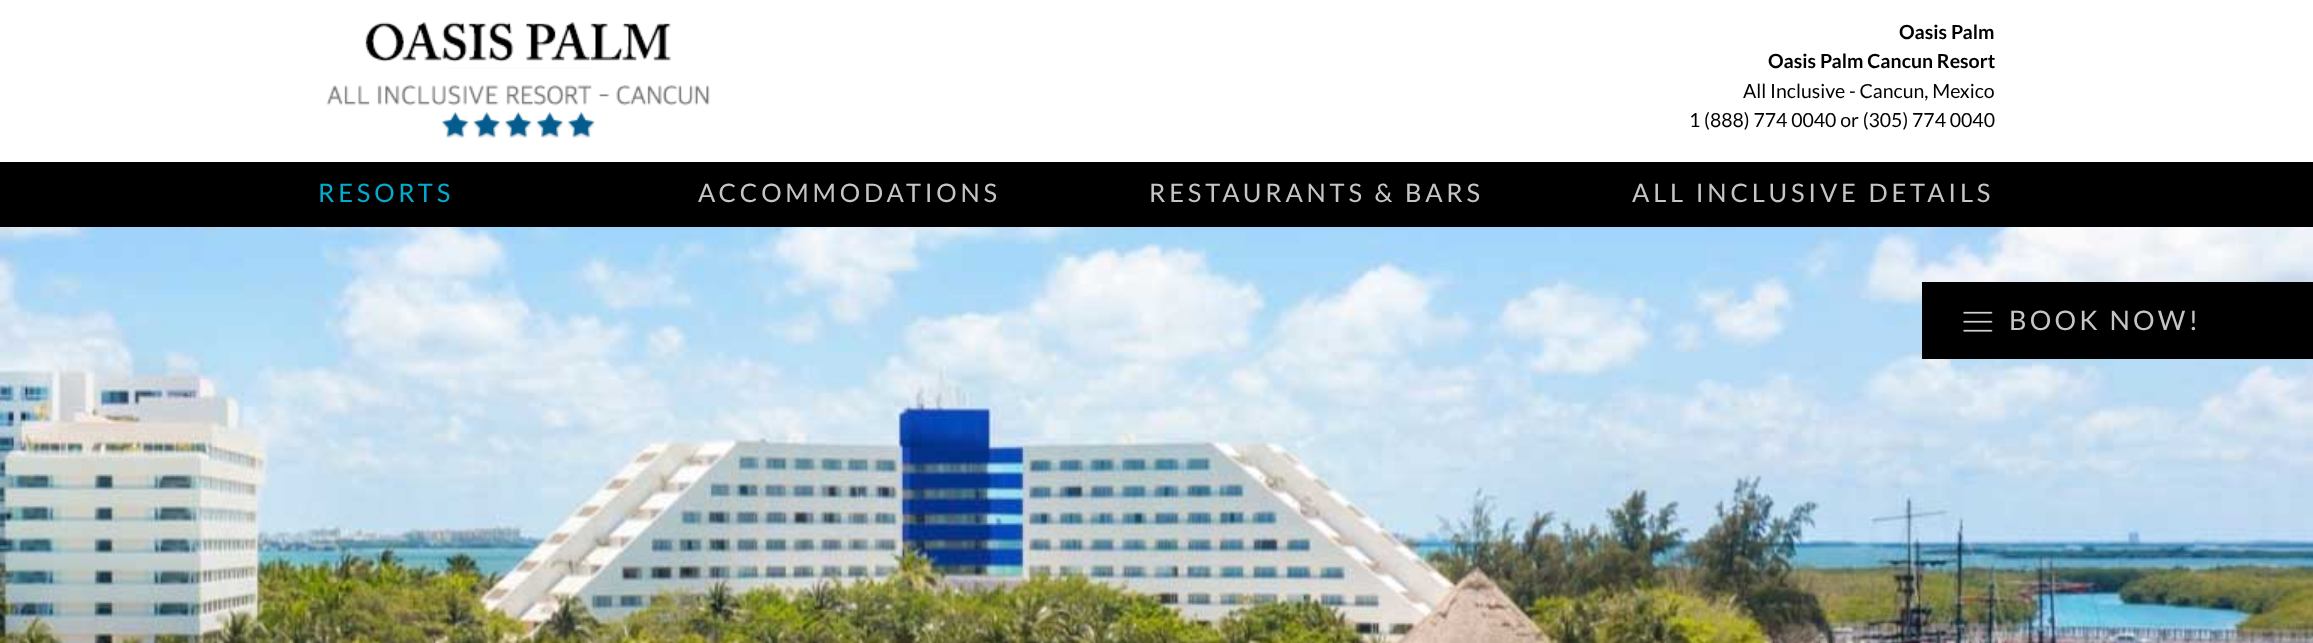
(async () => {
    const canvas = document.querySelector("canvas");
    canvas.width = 2313;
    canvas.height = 643;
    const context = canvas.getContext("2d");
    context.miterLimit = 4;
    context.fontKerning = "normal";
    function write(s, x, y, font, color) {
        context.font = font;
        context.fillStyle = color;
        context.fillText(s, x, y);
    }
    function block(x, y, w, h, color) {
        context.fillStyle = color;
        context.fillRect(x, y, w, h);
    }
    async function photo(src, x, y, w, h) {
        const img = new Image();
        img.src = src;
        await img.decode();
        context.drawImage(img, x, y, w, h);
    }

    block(0, 0, 2313, 643, "rgb(255, 255, 255)");
    await photo("media/1.png", 326, 22, 384, 116);
    write("Oasis Palm", 1899, 39, "bold 19.5px Lato", "rgb(0, 0, 0)");
    write("Oasis Palm Cancun Resort", 1768, 68, "bold 19.5px Lato", "rgb(0, 0, 0)");
    write("All Inclusive - Cancun, Mexico", 1743, 98, "19.5px Lato", "rgb(0, 0, 0)");
    write("1 (888) 774 0040 or (305) 774 0040", 1689, 127, "19.5px Lato", "rgb(0, 0, 0)");
    block(0, 162, 2313, 65, "rgb(0, 0, 0)");
    context.letterSpacing = "3.8px";
    write("RESORTS", 318, 202, "25.5px Lato", "rgb(4, 171, 206)");
    write("ACCOMMODATIONS", 698, 202, "25.5px Lato", "rgb(197, 197, 197)");
    write("RESTAURANTS & BARS", 1149, 202, "25.5px Lato", "rgb(197, 197, 197)");
    write("ALL INCLUSIVE DETAILS", 1632, 202, "25.5px Lato", "rgb(197, 197, 197)");
    await photo("media/3.png", 0, 227, 2313, 416);
    block(1922, 282, 391, 77, "rgb(0, 0, 0)");
    await photo("media/2.png", 1963, 311, 30, 21);
    context.letterSpacing = "3.25px";
    write("BOOK NOW!", 2009, 330, "27px Lato", "rgb(197, 197, 197)");
})();
